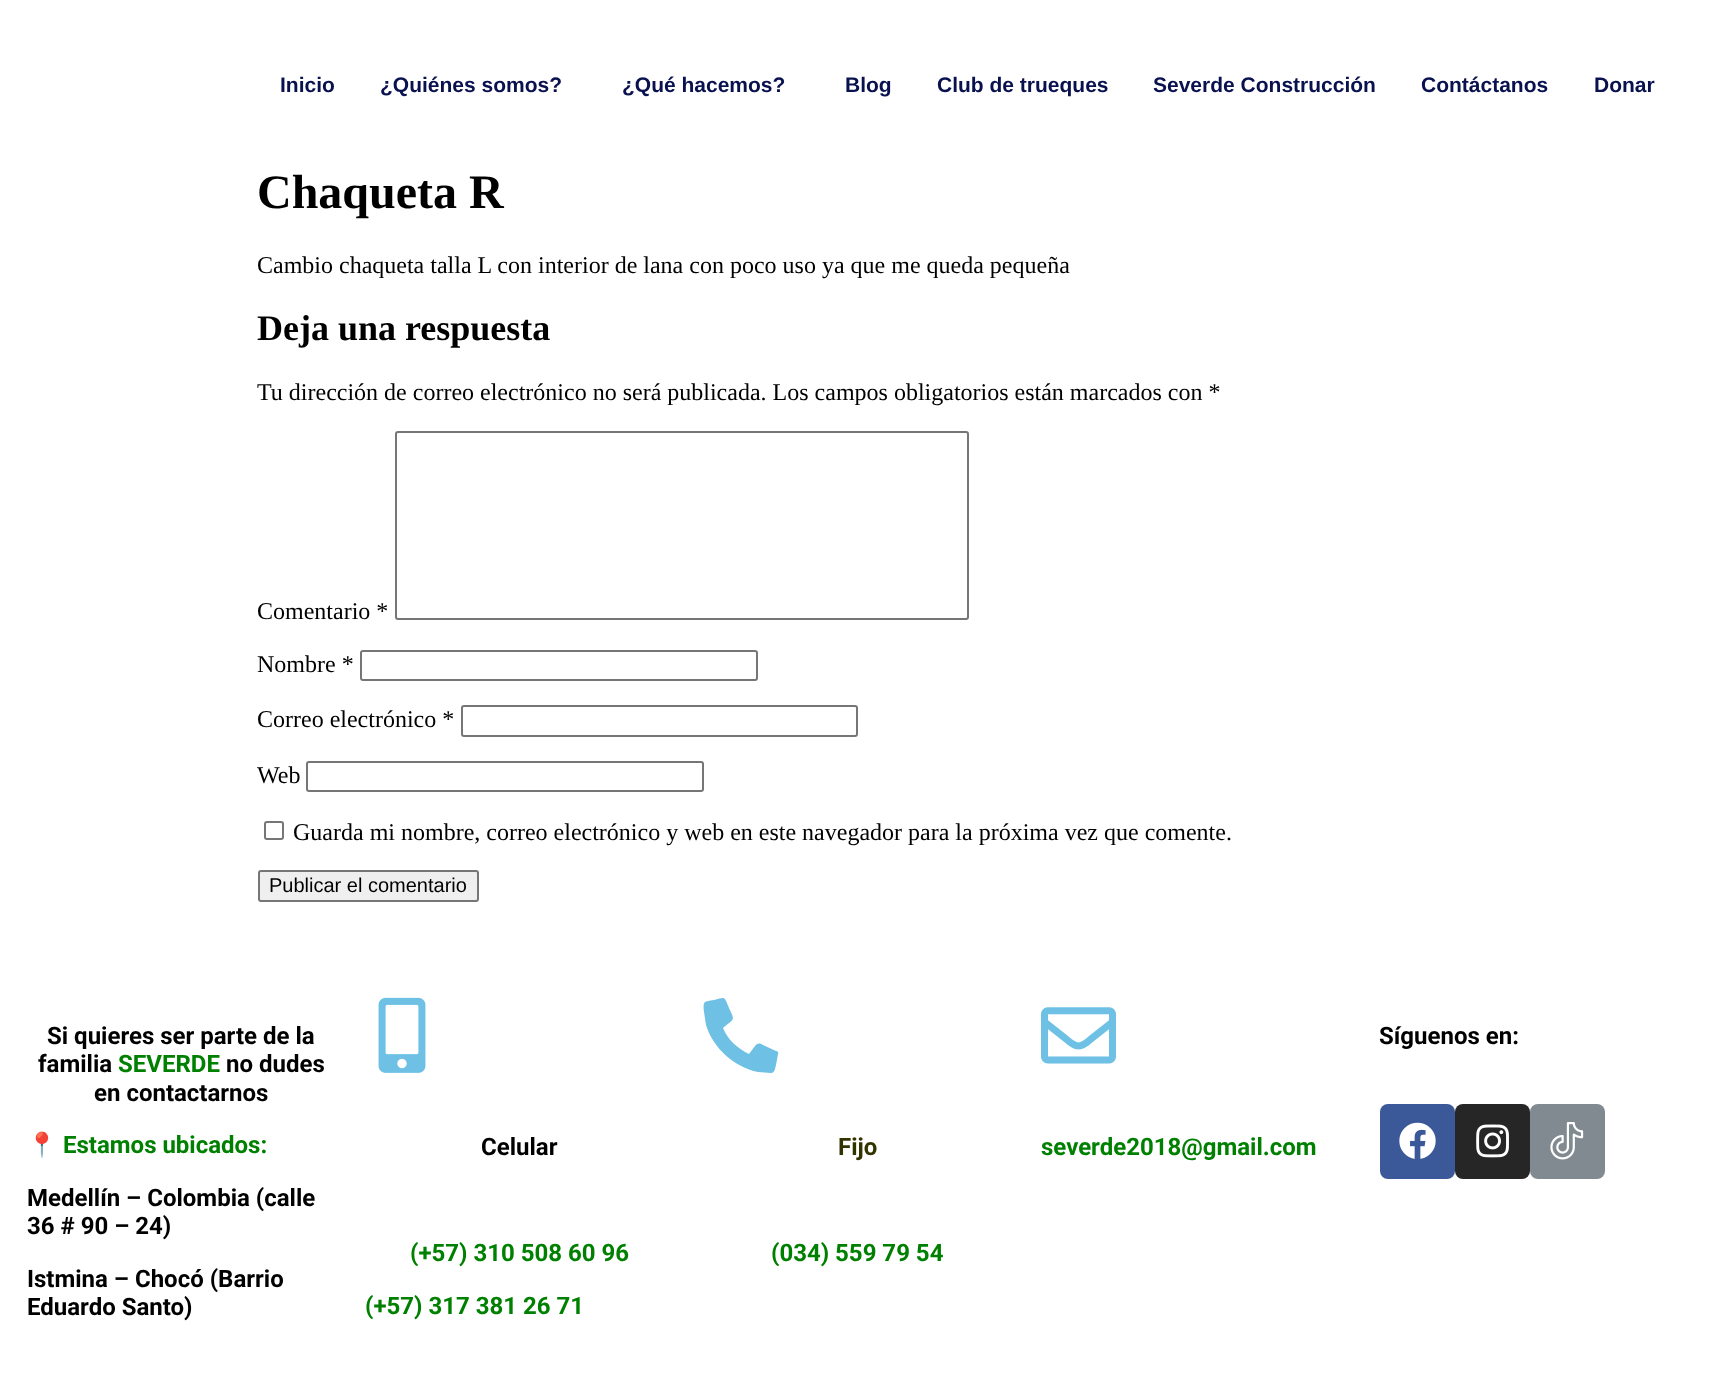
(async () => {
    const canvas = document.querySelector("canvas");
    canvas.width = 1714;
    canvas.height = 1393;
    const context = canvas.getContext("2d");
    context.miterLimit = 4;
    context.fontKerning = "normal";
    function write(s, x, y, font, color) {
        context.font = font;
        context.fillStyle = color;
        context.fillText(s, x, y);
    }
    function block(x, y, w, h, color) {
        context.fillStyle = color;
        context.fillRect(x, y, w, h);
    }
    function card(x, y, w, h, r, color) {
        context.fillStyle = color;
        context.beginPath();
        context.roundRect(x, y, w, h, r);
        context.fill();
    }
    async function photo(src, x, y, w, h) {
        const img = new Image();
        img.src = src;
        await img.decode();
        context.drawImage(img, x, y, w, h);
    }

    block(0, 0, 1714, 1393, "rgb(255, 255, 255)");
    write("Inicio", 280, 92, "bold 21px Liberation Sans", "rgb(9, 18, 79)");
    write("¿Quiénes somos?", 380, 92, "bold 21px Liberation Sans", "rgb(9, 18, 79)");
    write("¿Qué hacemos?", 622, 92, "bold 21px Liberation Sans", "rgb(9, 18, 79)");
    write("Blog", 845, 92, "bold 21px Liberation Sans", "rgb(9, 18, 79)");
    write("Club de trueques", 937, 92, "bold 21px Liberation Sans", "rgb(9, 18, 79)");
    write("Severde Construcción", 1153, 92, "bold 21px Liberation Sans", "rgb(9, 18, 79)");
    write("Contáctanos", 1421, 92, "bold 21px Liberation Sans", "rgb(9, 18, 79)");
    write("Donar", 1594, 92, "bold 21px Liberation Sans", "rgb(9, 18, 79)");
    write("Chaqueta R", 257, 208, "bold 48px Liberation Serif", "rgb(0, 0, 0)");
    write("Cambio chaqueta talla L con interior de lana con poco uso ya que me queda pequeña", 257, 273, "24px Liberation Serif", "rgb(0, 0, 0)");
    write("Deja una respuesta", 257, 340, "bold 36px Liberation Serif", "rgb(0, 0, 0)");
    write("Tu dirección de correo electrónico no será publicada. Los campos obligatorios están marcados con *", 257, 400, "24px Liberation Serif", "rgb(0, 0, 0)");
    write("Comentario *", 257, 619, "24px Liberation Serif", "rgb(0, 0, 0)");
    context.beginPath();
    context.roundRect(396, 432, 572, 187, 2);
    context.strokeStyle = "rgb(118, 118, 118)";
    context.lineWidth = 2;
    context.stroke();
    write("Nombre *", 257, 672, "24px Liberation Serif", "rgb(0, 0, 0)");
    context.beginPath();
    context.roundRect(361, 651, 396, 29, 2);
    context.stroke();
    write("Correo electrónico *", 257, 727, "24px Liberation Serif", "rgb(0, 0, 0)");
    context.beginPath();
    context.roundRect(462, 706, 395, 30, 2);
    context.stroke();
    write("Web", 257, 783, "24px Liberation Serif", "rgb(0, 0, 0)");
    context.beginPath();
    context.roundRect(307, 762, 396, 29, 2);
    context.stroke();
    context.beginPath();
    context.roundRect(265, 822, 18, 17, 2);
    context.stroke();
    write("Guarda mi nombre, correo electrónico y web en este navegador para la próxima vez que comente.", 293, 840, "24px Liberation Serif", "rgb(0, 0, 0)");
    context.fillStyle = "rgb(239, 239, 239)";
    context.beginPath();
    context.roundRect(259, 871, 219, 30, 2);
    context.fill();
    context.stroke();
    write("Publicar el comentario", 269, 892, "20px Liberation Sans", "rgb(0, 0, 0)");
    write("Si quieres ser parte de la", 47, 1044, "bold 24px Roboto", "rgb(0, 0, 0)");
    write("familia", 38, 1072, "bold 24px Roboto", "rgb(0, 0, 0)");
    write("SEVERDE", 118, 1072, "bold 24px Roboto", "rgb(0, 128, 0)");
    write("no dudes", 226, 1072, "bold 24px Roboto", "rgb(0, 0, 0)");
    write("en contactarnos", 94, 1101, "bold 24px Roboto", "rgb(0, 0, 0)");
    write("📍", 27, 1153, "24px Noto Color Emoji", "rgb(0, 0, 0)");
    write("Estamos ubicados:", 63, 1153, "bold 24px Roboto", "rgb(0, 128, 0)");
    write("Medellín – Colombia (calle", 27, 1206, "bold 24px Roboto", "rgb(0, 0, 0)");
    write("36 # 90 – 24)", 27, 1234, "bold 24px Roboto", "rgb(0, 0, 0)");
    write("Istmina – Chocó (Barrio", 27, 1287, "bold 24px Roboto", "rgb(0, 0, 0)");
    write("Eduardo Santo)", 27, 1315, "bold 24px Roboto", "rgb(0, 0, 0)");
    write("Síguenos en:", 1379, 1044, "bold 24px Roboto", "rgb(0, 0, 0)");
    card(1380, 1104, 75, 75, 8, "rgb(59, 89, 152)");
    await photo("media/1.png", 1399, 1122, 37, 37);
    card(1455, 1104, 75, 75, 8, "rgb(38, 38, 38)");
    await photo("media/2.png", 1476, 1124, 33, 34);
    card(1530, 1104, 75, 75, 8, "rgb(129, 138, 145)");
    await photo("media/3.png", 1550, 1122, 34, 38);
    await photo("media/4.png", 378, 997, 48, 76);
    write("Celular", 481, 1155, "bold 24px Roboto", "rgb(0, 0, 0)");
    write("(+57) 310 508 60 96", 410, 1261, "bold 24px Roboto", "rgb(0, 128, 0)");
    write("(+57) 317 381 26 71", 365, 1314, "bold 24px Roboto", "rgb(0, 128, 0)");
    context.fillStyle = "rgb(110, 193, 228)";
    context.beginPath();
    context.moveTo(776, 1051);
    context.bezierCurveTo(778, 1051, 779, 1053, 778, 1054);
    context.lineTo(776, 1065);
    context.bezierCurveTo(775, 1068, 775, 1073, 771, 1073);
    context.lineTo(758, 1072);
    context.bezierCurveTo(734, 1067, 713, 1048, 706, 1025);
    context.lineTo(704, 1012);
    context.bezierCurveTo(703, 1000, 704, 1002, 714, 1000);
    context.bezierCurveTo(726, 997, 724, 996, 729, 1008);
    context.bezierCurveTo(735, 1021, 735, 1018, 723, 1028);
    context.bezierCurveTo(728, 1040, 737, 1048, 749, 1054);
    context.lineTo(755, 1046);
    context.bezierCurveTo(758, 1043, 759, 1043, 763, 1045);
    context.closePath();
    context.fill();
    write("Fijo", 838, 1155, "bold 24px Roboto", "rgb(51, 51, 0)");
    write("(034) 559 79 54", 771, 1261, "bold 24px Roboto", "rgb(0, 128, 0)");
    await photo("media/5.png", 1041, 1007, 75, 57);
    write("severde2018@gmail.com", 1041, 1155, "bold 24px Roboto", "rgb(0, 128, 0)");
})();
